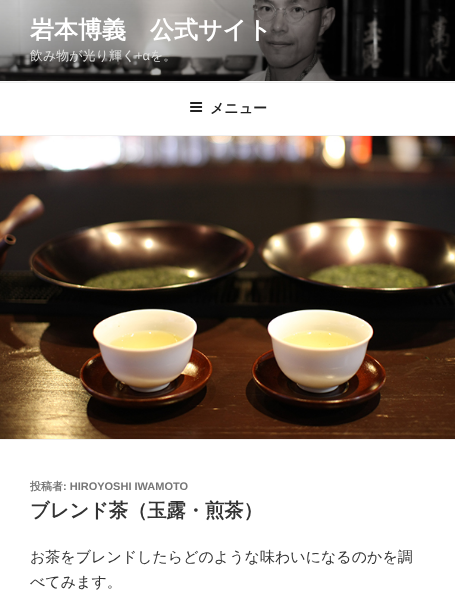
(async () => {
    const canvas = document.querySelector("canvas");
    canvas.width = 455;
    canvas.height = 611;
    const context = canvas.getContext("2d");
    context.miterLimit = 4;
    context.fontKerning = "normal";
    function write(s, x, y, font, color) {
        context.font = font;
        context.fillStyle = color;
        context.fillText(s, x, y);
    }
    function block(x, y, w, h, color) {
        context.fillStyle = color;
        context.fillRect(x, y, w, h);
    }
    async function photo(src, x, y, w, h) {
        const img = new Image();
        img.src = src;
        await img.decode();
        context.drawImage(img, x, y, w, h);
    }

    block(0, 0, 455, 611, "rgb(255, 255, 255)");
    block(0, 81, 455, 1, "rgb(250, 250, 250)");
    await photo("media/1.png", 0, 0, 455, 81);
    write("岩本博義　公式サイト", 30, 38, "bold 24px WenQuanYi Zen Hei", "rgb(255, 255, 255)");
    write("飲み物が光り輝く", 30, 60, "500 13px WenQuanYi Zen Hei", "rgb(224, 224, 223)");
    write("+α", 135, 60, "13px Liberation Sans", "rgb(224, 224, 223)");
    write("を。", 150, 60, "500 13px WenQuanYi Zen Hei", "rgb(224, 224, 223)");
    block(0, 82, 455, 1, "rgb(238, 238, 238)");
    block(0, 135, 455, 1, "rgb(238, 238, 238)");
    await photo("media/2.png", 190, 102, 13, 10);
    write("メニュー", 210, 113, "bold 14px WenQuanYi Zen Hei", "rgb(34, 34, 34)");
    block(0, 439, 455, 1, "rgb(238, 238, 238)");
    await photo("media/3.png", 0, 136, 455, 303);
    write("投稿者", 30, 490, "bold 11px WenQuanYi Zen Hei", "rgb(118, 118, 118)");
    write(": HIROYOSHI IWAMOTO", 63, 490, "bold 11px Liberation Sans", "rgb(118, 118, 118)");
    write("ブレンド茶（玉露・煎茶）", 30, 517, "bold 19.25px WenQuanYi Zen Hei", "rgb(51, 51, 51)");
    write("お茶をブレンドしたらどのような味わいになるのかを調", 30, 562, "500 15px WenQuanYi Zen Hei", "rgb(51, 51, 51)");
    write("べてみます。", 30, 587, "500 15px WenQuanYi Zen Hei", "rgb(51, 51, 51)");
})();
